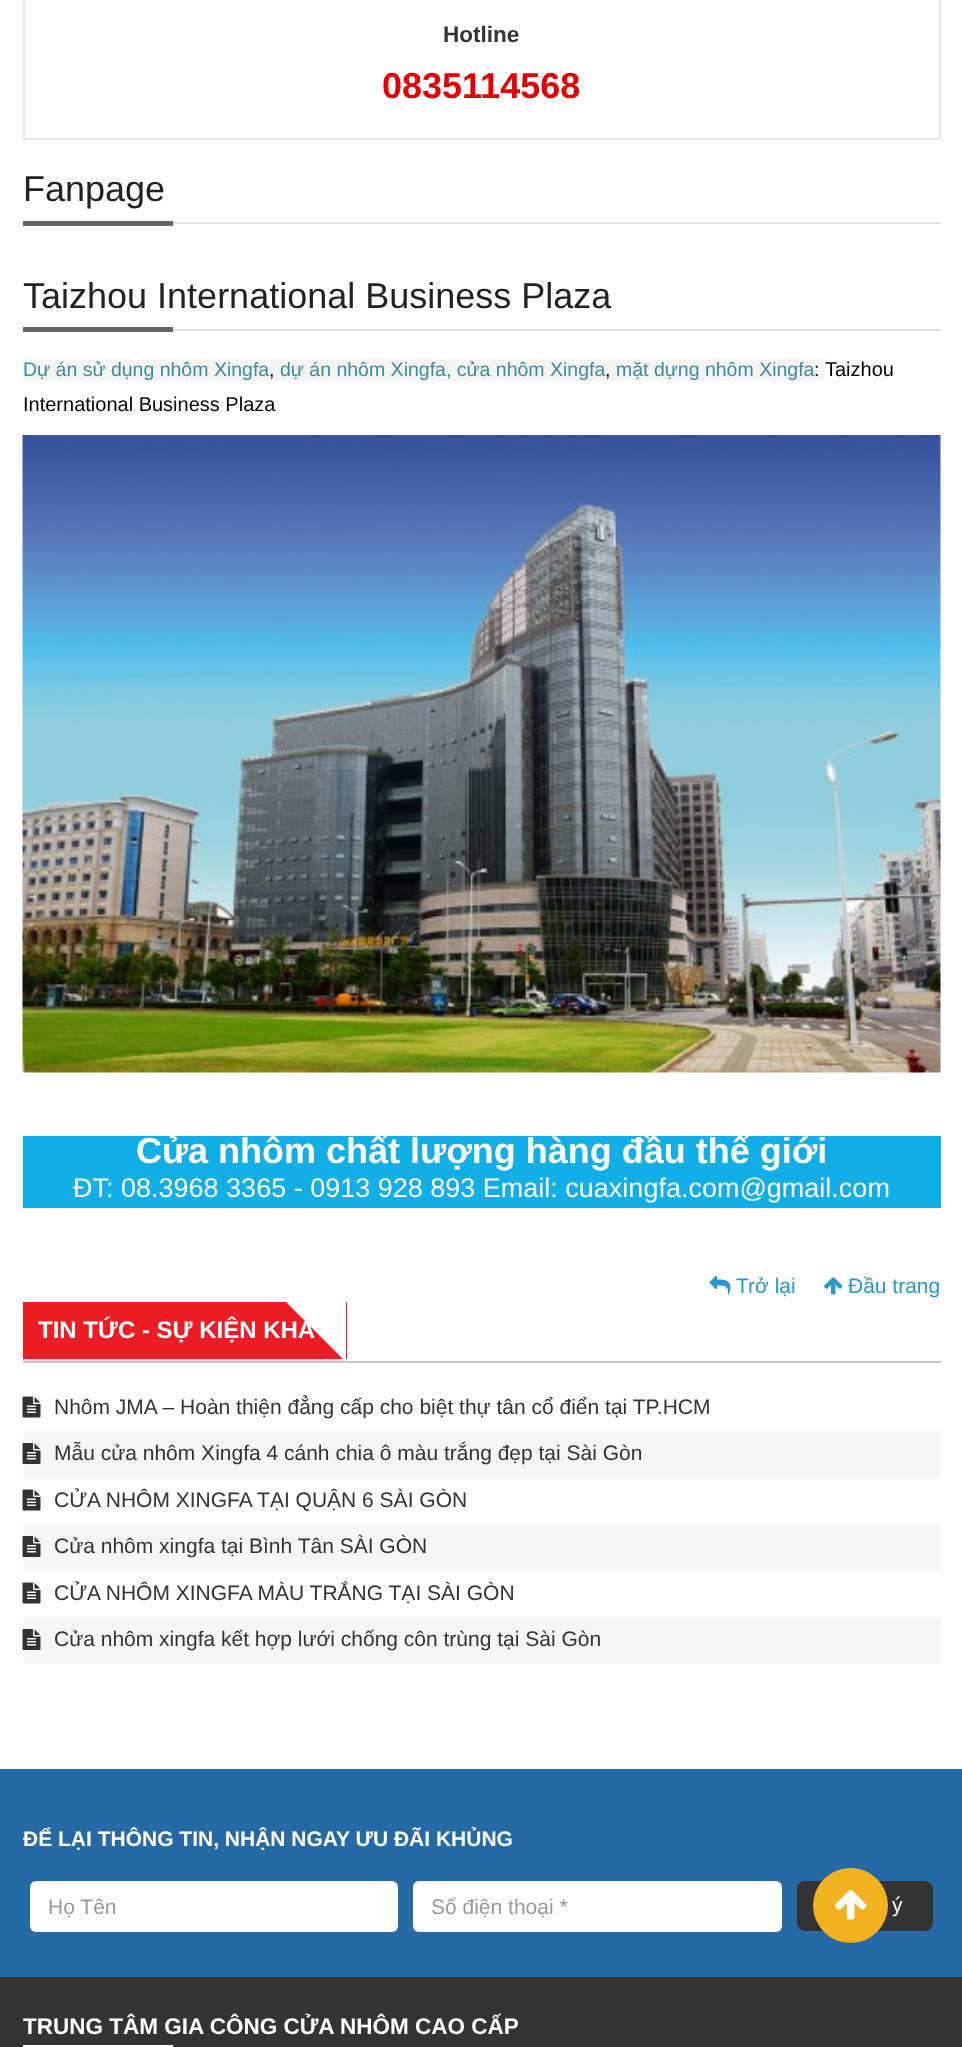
(async () => {
    const canvas = document.querySelector("canvas");
    canvas.width = 962;
    canvas.height = 2047;
    const context = canvas.getContext("2d");
    context.miterLimit = 4;
    context.fontKerning = "normal";
    function write(s, x, y, font, color) {
        context.font = font;
        context.fillStyle = color;
        context.fillText(s, x, y);
    }
    function block(x, y, w, h, color) {
        context.fillStyle = color;
        context.fillRect(x, y, w, h);
    }
    function card(x, y, w, h, r, color) {
        context.fillStyle = color;
        context.beginPath();
        context.roundRect(x, y, w, h, r);
        context.fill();
    }
    async function photo(src, x, y, w, h) {
        const img = new Image();
        img.src = src;
        await img.decode();
        context.drawImage(img, x, y, w, h);
    }

    block(0, 0, 962, 2047, "rgb(255, 255, 255)");
    context.strokeStyle = "rgb(230, 232, 231)";
    context.lineWidth = 2;
    context.strokeRect(24, -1, 916, 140);
    write("Hotline", 443, 42, "bold 22.5px Liberation Sans", "rgb(51, 51, 51)");
    write("0835114568", 382, 98, "bold 36px Liberation Sans", "rgb(227, 0, 0)");
    block(173, 222, 768, 2, "rgb(225, 225, 225)");
    write("Fanpage", 23, 201, "36px Liberation Sans", "rgb(34, 34, 34)");
    block(23, 221, 150, 5, "rgb(102, 102, 102)");
    block(173, 329, 768, 2, "rgb(225, 225, 225)");
    write("Taizhou International Business Plaza", 23, 308, "36px Liberation Sans", "rgb(34, 34, 34)");
    block(23, 327, 150, 5, "rgb(102, 102, 102)");
    block(23, 359, 802, 22, "rgb(244, 244, 244)");
    write("Dự án sử dụng nhôm Xingfa", 23, 376, "19.5px Liberation Sans", "rgb(59, 140, 159)");
    write(",", 269, 376, "19.5px Liberation Sans", "rgb(0, 0, 0)");
    write("dự án nhôm Xingfa, cửa nhôm Xingfa", 280, 376, "19.5px Liberation Sans", "rgb(59, 140, 159)");
    write(",", 605, 376, "19.5px Liberation Sans", "rgb(0, 0, 0)");
    write("mặt dựng nhôm Xingfa", 616, 376, "19.5px Liberation Sans", "rgb(59, 140, 159)");
    write(":", 814, 376, "19.5px Liberation Sans", "rgb(0, 0, 0)");
    write("Taizhou", 825, 376, "20px Liberation Sans", "rgb(0, 0, 0)");
    write("International Business Plaza", 23, 411, "20px Liberation Sans", "rgb(0, 0, 0)");
    await photo("media/1.png", 22, 435, 919, 638);
    block(23, 1136, 918, 72, "rgb(17, 174, 232)");
    write("Cửa nhôm chất lượng hàng đầu thế giới", 136, 1163, "bold 36px Liberation Sans", "rgb(255, 255, 255)");
    write("ĐT: 08.3968 3365 - 0913 928 893 Email: cuaxingfa.com@gmail.com", 73, 1197, "27px Liberation Sans", "rgb(255, 255, 255)");
    await photo("media/2.png", 709, 1275, 22, 20);
    write("Trở lại", 736, 1293, "21px Liberation Sans", "rgb(41, 151, 202)");
    await photo("media/3.png", 824, 1277, 19, 18);
    write("Đầu trang", 848, 1293, "21px Liberation Sans", "rgb(41, 151, 202)");
    block(23, 1361, 918, 2, "rgb(199, 199, 199)");
    block(23, 1302, 324, 57, "rgb(238, 28, 36)");
    block(23, 1359, 324, 2, "rgb(222, 222, 222)");
    write("TIN TỨC - SỰ KIỆN KHÁ", 38, 1338, "bold 24px Liberation Sans", "rgb(255, 255, 255)");
    context.beginPath();
    context.moveTo(346, 1302);
    context.lineTo(346, 1362);
    context.lineTo(286, 1302);
    context.closePath();
    context.fill();
    await photo("media/4.png", 22, 1396, 19, 22);
    write("Nhôm JMA – Hoàn thiện đẳng cấp cho biệt thự tân cổ điển tại TP.HCM", 54, 1414, "21px Liberation Sans", "rgb(51, 51, 51)");
    block(23, 1431, 918, 47, "rgb(246, 246, 246)");
    await photo("media/5.png", 22, 1443, 19, 21);
    write("Mẫu cửa nhôm Xingfa 4 cánh chia ô màu trắng đẹp tại Sài Gòn", 54, 1460, "21px Liberation Sans", "rgb(51, 51, 51)");
    await photo("media/4.png", 22, 1489, 19, 22);
    write("CỬA NHÔM XINGFA TẠI QUẬN 6 SÀI GÒN", 54, 1507, "21px Liberation Sans", "rgb(51, 51, 51)");
    block(23, 1524, 918, 47, "rgb(246, 246, 246)");
    await photo("media/5.png", 22, 1536, 19, 21);
    write("Cửa nhôm xingfa tại Bình Tân SÀI GÒN", 54, 1553, "21px Liberation Sans", "rgb(51, 51, 51)");
    await photo("media/4.png", 22, 1582, 19, 22);
    write("CỬA NHÔM XINGFA MÀU TRẮNG TẠI SÀI GÒN", 54, 1600, "21px Liberation Sans", "rgb(51, 51, 51)");
    block(23, 1617, 918, 47, "rgb(246, 246, 246)");
    await photo("media/5.png", 22, 1629, 19, 21);
    write("Cửa nhôm xingfa kết hợp lưới chống côn trùng tại Sài Gòn", 54, 1646, "21px Liberation Sans", "rgb(51, 51, 51)");
    block(0, 1769, 962, 208, "rgb(37, 106, 165)");
    write("ĐỂ LẠI THÔNG TIN, NHẬN NGAY ƯU ĐÃI KHỦNG", 23, 1846, "bold 21px Liberation Sans", "rgb(255, 255, 255)");
    card(30, 1881, 368, 51, 6, "rgb(255, 255, 255)");
    context.fillStyle = "rgba(0, 0, 0, 0.07)";
    context.beginPath();
    context.moveTo(36, 1882);
    context.lineTo(392, 1882);
    context.bezierCurveTo(395, 1882, 398, 1885, 398, 1888);
    context.bezierCurveTo(398, 1884, 396, 1881, 392, 1881);
    context.lineTo(36, 1881);
    context.bezierCurveTo(32, 1881, 30, 1884, 30, 1888);
    context.bezierCurveTo(30, 1885, 33, 1882, 36, 1882);
    context.closePath();
    context.fill();
    write("Họ Tên", 48, 1914, "21px Liberation Sans", "rgb(153, 153, 153)");
    card(413, 1881, 369, 51, 6, "rgb(255, 255, 255)");
    context.fillStyle = "rgba(0, 0, 0, 0.07)";
    context.beginPath();
    context.moveTo(418, 1882);
    context.lineTo(776, 1882);
    context.bezierCurveTo(779, 1882, 782, 1885, 782, 1888);
    context.bezierCurveTo(782, 1884, 780, 1881, 776, 1881);
    context.lineTo(419, 1881);
    context.lineTo(415, 1882);
    context.lineTo(414, 1884);
    context.bezierCurveTo(415, 1883, 417, 1882, 418, 1882);
    context.closePath();
    context.fill();
    write("Số điện thoại *", 431, 1914, "21px Liberation Sans", "rgb(153, 153, 153)");
    card(797, 1881, 136, 50, 8, "rgb(51, 51, 51)");
    write("ý", 892, 1912, "21px Liberation Sans", "rgb(255, 255, 255)");
    context.fillStyle = "rgb(242, 177, 31)";
    context.beginPath();
    context.arc(850.5, 1905.5, 37.5, 0, Math.PI * 2);
    context.fill();
    await photo("media/6.png", 835, 1890, 32, 30);
    block(0, 1977, 962, 70, "rgb(51, 51, 51)");
    write("TRUNG TÂM GIA CÔNG CỬA NHÔM CAO CẤP", 23, 2034, "bold 22.5px Liberation Sans", "rgb(255, 255, 255)");
    block(23, 2045, 150, 2, "rgb(255, 255, 255)");
})();
